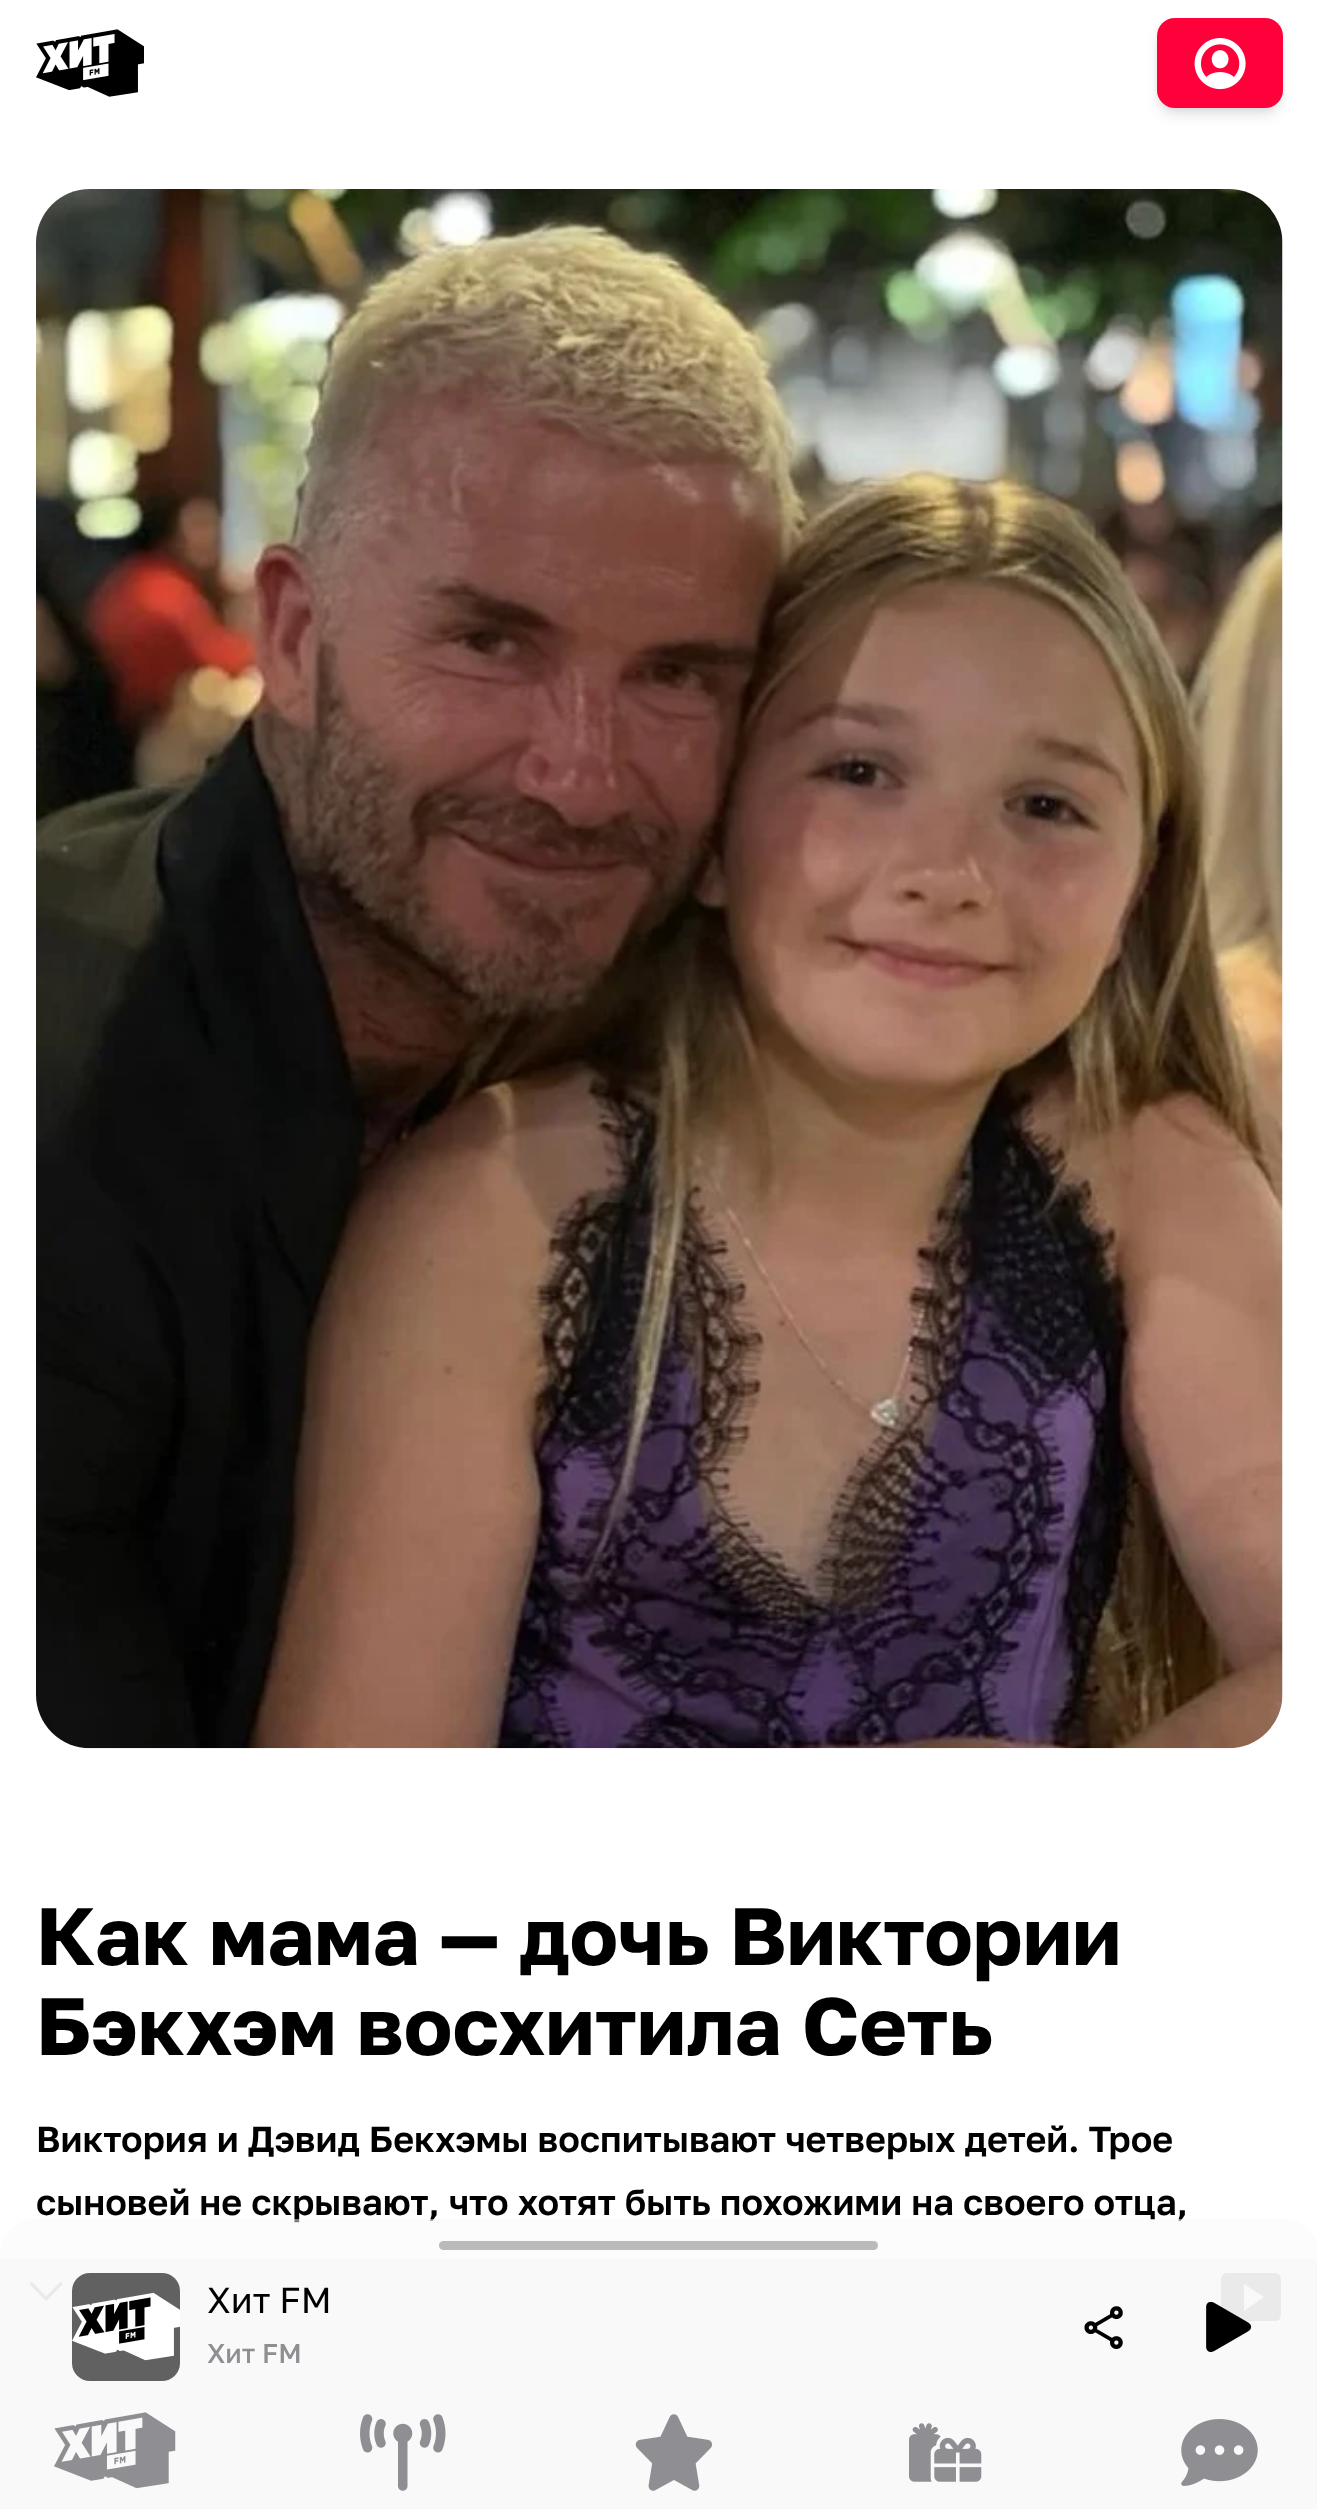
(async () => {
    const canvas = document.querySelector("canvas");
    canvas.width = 1317;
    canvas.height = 2509;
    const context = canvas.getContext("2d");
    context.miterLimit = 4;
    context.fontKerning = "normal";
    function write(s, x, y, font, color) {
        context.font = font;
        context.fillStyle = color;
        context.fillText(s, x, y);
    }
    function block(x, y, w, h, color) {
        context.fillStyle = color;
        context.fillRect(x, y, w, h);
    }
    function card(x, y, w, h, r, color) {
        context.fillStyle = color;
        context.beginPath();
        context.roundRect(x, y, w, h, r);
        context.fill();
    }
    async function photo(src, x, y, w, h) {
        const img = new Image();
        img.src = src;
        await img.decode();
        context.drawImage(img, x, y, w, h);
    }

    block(0, 0, 1317, 2509, "rgb(255, 255, 255)");
    await photo("media/1.png", 36, 29, 108, 68);
    context.fillStyle = "rgba(0, 0, 0, 0.1)";
    context.filter = "blur(4.5px)";
    context.beginPath();
    context.roundRect(1161, 27, 117, 81, 14);
    context.fill();
    context.filter = "none";
    context.filter = "blur(7px)";
    context.beginPath();
    context.roundRect(1159, 29, 121, 86, 16);
    context.fill();
    context.filter = "none";
    card(1157, 18, 126, 90, 18, "rgb(255, 0, 58)");
    await photo("media/2.png", 1194, 38, 52, 52);
    await photo("media/3.png", 36, 189, 1247, 1560);
    write("Как мама — дочь Виктории", 36, 1965, "bold 81px Golos Text", "rgb(0, 0, 0)");
    write("Бэкхэм восхитила Сеть", 36, 2055, "bold 81px Golos Text", "rgb(0, 0, 0)");
    write("Виктория и Дэвид Бекхэмы воспитывают четверых детей. Трое", 36, 2152, "600 36px Golos Text", "rgb(0, 0, 0)");
    write("сыновей не скрывают, что хотят быть похожими на своего отца,", 36, 2215, "600 36px Golos Text", "rgb(0, 0, 0)");
    context.fillStyle = "rgba(249, 249, 249, 0.5)";
    context.beginPath();
    context.moveTo(36, 2219);
    context.lineTo(1283, 2219);
    context.bezierCurveTo(1303, 2219, 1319, 2235, 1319, 2255);
    context.lineTo(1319, 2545);
    context.lineTo(0, 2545);
    context.lineTo(0, 2255);
    context.bezierCurveTo(0, 2235, 16, 2219, 36, 2219);
    context.closePath();
    context.fill();
    block(0, 2385, 1317, 124, "rgba(249, 249, 249, 0.94)");
    await photo("media/4.png", 54, 2412, 122, 77);
    await photo("media/5.png", 360, 2414, 86, 77);
    await photo("media/6.png", 635, 2414, 77, 77);
    await photo("media/7.png", 909, 2423, 73, 59);
    await photo("media/8.png", 1181, 2419, 77, 67);
    card(439, 2241, 439, 9, 4.5, "rgb(186, 186, 189)");
    await photo("media/9.png", 30, 2282, 33, 19);
    context.fillStyle = "rgb(0, 0, 0)";
    context.beginPath();
    context.moveTo(1244, 2311);
    context.lineTo(1264, 2297);
    context.lineTo(1244, 2284);
    context.closePath();
    context.moveTo(1227, 2321);
    context.bezierCurveTo(1220, 2321, 1221, 2314, 1221, 2309);
    context.lineTo(1221, 2285);
    context.bezierCurveTo(1221, 2281, 1220, 2273, 1227, 2273);
    context.lineTo(1276, 2273);
    context.bezierCurveTo(1282, 2274, 1281, 2281, 1281, 2285);
    context.lineTo(1281, 2309);
    context.bezierCurveTo(1281, 2314, 1282, 2321, 1275, 2321);
    context.closePath();
    context.fill();
    block(0, 2259, 1317, 126, "rgba(249, 249, 249, 0.94)");
    card(72, 2273, 108, 108, 18, "rgb(97, 97, 97)");
    await photo("media/10.png", 72, 2292, 108, 69);
    write("Хит FM", 207, 2313, "36px Golos Text", "rgb(0, 0, 0)");
    write("Хит FM", 207, 2363, "500 27px Golos Text", "rgb(142, 142, 147)");
    await photo("media/11.png", 1084, 2306, 39, 43);
    await photo("media/12.png", 1206, 2302, 46, 50);
})();
